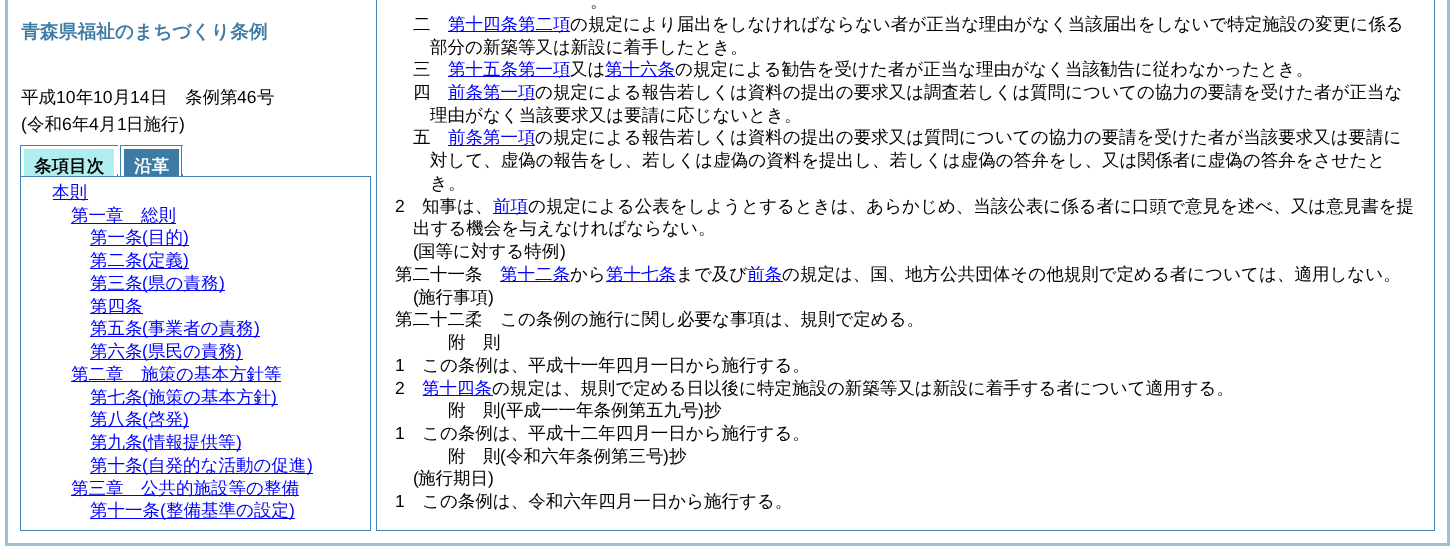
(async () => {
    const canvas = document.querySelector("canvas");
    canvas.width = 1455;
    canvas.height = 551;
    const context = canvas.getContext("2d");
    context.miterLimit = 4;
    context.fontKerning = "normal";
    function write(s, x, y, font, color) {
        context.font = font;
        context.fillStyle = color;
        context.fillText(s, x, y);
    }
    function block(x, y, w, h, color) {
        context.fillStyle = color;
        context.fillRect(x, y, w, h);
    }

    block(0, 0, 1455, 551, "rgb(255, 255, 255)");
    context.strokeStyle = "rgb(160, 191, 204)";
    context.lineWidth = 3;
    context.strokeRect(6.5, -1.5, 1442, 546);
    write("青森県福祉のまちづくり条例", 21, 38, "bold 18.75px WenQuanYi Zen Hei", "rgb(61, 122, 164)");
    write("平成", 21, 103, "500 17.5px WenQuanYi Zen Hei", "rgb(0, 0, 0)");
    write("10", 56, 103, "17.5px Liberation Sans", "rgb(0, 0, 0)");
    write("年", 76, 103, "500 17.5px WenQuanYi Zen Hei", "rgb(0, 0, 0)");
    write("10", 93, 103, "17.5px Liberation Sans", "rgb(0, 0, 0)");
    write("月", 113, 103, "500 17.5px WenQuanYi Zen Hei", "rgb(0, 0, 0)");
    write("14", 130, 103, "17.5px Liberation Sans", "rgb(0, 0, 0)");
    write("日　条例第", 150, 103, "500 17.5px WenQuanYi Zen Hei", "rgb(0, 0, 0)");
    write("46", 237, 103, "17.5px Liberation Sans", "rgb(0, 0, 0)");
    write("号", 257, 103, "500 17.5px WenQuanYi Zen Hei", "rgb(0, 0, 0)");
    write("(", 21, 130, "17.5px Liberation Sans", "rgb(0, 0, 0)");
    write("令和", 27, 130, "500 17.5px WenQuanYi Zen Hei", "rgb(0, 0, 0)");
    write("6", 62, 130, "17.5px Liberation Sans", "rgb(0, 0, 0)");
    write("年", 72, 130, "500 17.5px WenQuanYi Zen Hei", "rgb(0, 0, 0)");
    write("4", 89, 130, "17.5px Liberation Sans", "rgb(0, 0, 0)");
    write("月", 99, 130, "500 17.5px WenQuanYi Zen Hei", "rgb(0, 0, 0)");
    write("1", 117, 130, "17.5px Liberation Sans", "rgb(0, 0, 0)");
    write("日施行", 126, 130, "500 17.5px WenQuanYi Zen Hei", "rgb(0, 0, 0)");
    write(")", 179, 130, "17.5px Liberation Sans", "rgb(0, 0, 0)");
    block(20, 145, 98, 1, "rgb(70, 130, 180)");
    block(117, 174, 1, 2, "rgb(70, 130, 180)");
    block(20, 145, 1, 33, "rgb(70, 130, 180)");
    block(24, 149, 90, 27, "rgb(175, 238, 238)");
    write("条項目次", 34, 172, "bold 17.5px WenQuanYi Zen Hei", "rgb(0, 0, 0)");
    block(120, 145, 63, 1, "rgb(70, 130, 180)");
    block(181, 145, 1, 33, "rgb(70, 130, 180)");
    block(181, 174, 2, 2, "rgb(70, 130, 180)");
    block(120, 145, 1, 33, "rgb(70, 130, 180)");
    block(124, 149, 55, 27, "rgb(61, 122, 164)");
    write("沿革", 134, 172, "bold 17.5px WenQuanYi Zen Hei", "rgb(255, 255, 255)");
    block(120, 177, 62, 1, "rgb(255, 255, 255)");
    context.strokeStyle = "rgb(70, 130, 180)";
    context.lineWidth = 1;
    context.strokeRect(20.5, 176.5, 350, 354);
    block(53, 199, 35, 1, "rgb(0, 0, 255)");
    write("本則", 52, 198, "500 17.5px WenQuanYi Zen Hei", "rgb(0, 0, 255)");
    block(71, 223, 105, 1, "rgb(0, 0, 255)");
    write("第一章", 71, 221, "500 17.5px WenQuanYi Zen Hei", "rgb(0, 0, 255)");
    write("総則", 141, 221, "500 17.5px WenQuanYi Zen Hei", "rgb(0, 0, 255)");
    block(90, 245, 99, 1, "rgb(0, 0, 255)");
    write("第一条", 90, 243, "500 17.5px WenQuanYi Zen Hei", "rgb(0, 0, 255)");
    write("(", 142, 243, "17.5px Liberation Sans", "rgb(0, 0, 255)");
    write("目的", 148, 243, "500 17.5px WenQuanYi Zen Hei", "rgb(0, 0, 255)");
    write(")", 183, 243, "17.5px Liberation Sans", "rgb(0, 0, 255)");
    block(90, 268, 99, 1, "rgb(0, 0, 255)");
    write("第二条", 90, 266, "500 17.5px WenQuanYi Zen Hei", "rgb(0, 0, 255)");
    write("(", 142, 266, "17.5px Liberation Sans", "rgb(0, 0, 255)");
    write("定義", 148, 266, "500 17.5px WenQuanYi Zen Hei", "rgb(0, 0, 255)");
    write(")", 183, 266, "17.5px Liberation Sans", "rgb(0, 0, 255)");
    block(90, 290, 135, 1, "rgb(0, 0, 255)");
    write("第三条", 90, 289, "500 17.5px WenQuanYi Zen Hei", "rgb(0, 0, 255)");
    write("(", 142, 289, "17.5px Liberation Sans", "rgb(0, 0, 255)");
    write("県の責務", 148, 289, "500 17.5px WenQuanYi Zen Hei", "rgb(0, 0, 255)");
    write(")", 219, 289, "17.5px Liberation Sans", "rgb(0, 0, 255)");
    block(90, 313, 53, 1, "rgb(0, 0, 255)");
    write("第四条", 90, 312, "500 17.5px WenQuanYi Zen Hei", "rgb(0, 0, 255)");
    block(90, 336, 170, 1, "rgb(0, 0, 255)");
    write("第五条", 90, 334, "500 17.5px WenQuanYi Zen Hei", "rgb(0, 0, 255)");
    write("(", 142, 334, "17.5px Liberation Sans", "rgb(0, 0, 255)");
    write("事業者の責務", 148, 334, "500 17.5px WenQuanYi Zen Hei", "rgb(0, 0, 255)");
    write(")", 254, 334, "17.5px Liberation Sans", "rgb(0, 0, 255)");
    block(90, 359, 153, 1, "rgb(0, 0, 255)");
    write("第六条", 90, 357, "500 17.5px WenQuanYi Zen Hei", "rgb(0, 0, 255)");
    write("(", 142, 357, "17.5px Liberation Sans", "rgb(0, 0, 255)");
    write("県民の責務", 148, 357, "500 17.5px WenQuanYi Zen Hei", "rgb(0, 0, 255)");
    write(")", 236, 357, "17.5px Liberation Sans", "rgb(0, 0, 255)");
    block(71, 381, 210, 1, "rgb(0, 0, 255)");
    write("第二章", 71, 380, "500 17.5px WenQuanYi Zen Hei", "rgb(0, 0, 255)");
    write("施策の基本方針等", 141, 380, "500 17.5px WenQuanYi Zen Hei", "rgb(0, 0, 255)");
    block(90, 404, 188, 1, "rgb(0, 0, 255)");
    write("第七条", 90, 403, "500 17.5px WenQuanYi Zen Hei", "rgb(0, 0, 255)");
    write("(", 142, 403, "17.5px Liberation Sans", "rgb(0, 0, 255)");
    write("施策の基本方針", 148, 403, "500 17.5px WenQuanYi Zen Hei", "rgb(0, 0, 255)");
    write(")", 271, 403, "17.5px Liberation Sans", "rgb(0, 0, 255)");
    block(90, 426, 99, 1, "rgb(0, 0, 255)");
    write("第八条", 90, 425, "500 17.5px WenQuanYi Zen Hei", "rgb(0, 0, 255)");
    write("(", 142, 425, "17.5px Liberation Sans", "rgb(0, 0, 255)");
    write("啓発", 148, 425, "500 17.5px WenQuanYi Zen Hei", "rgb(0, 0, 255)");
    write(")", 183, 425, "17.5px Liberation Sans", "rgb(0, 0, 255)");
    block(90, 449, 151, 1, "rgb(0, 0, 255)");
    write("第九条", 90, 448, "500 17.5px WenQuanYi Zen Hei", "rgb(0, 0, 255)");
    write("(", 142, 448, "17.5px Liberation Sans", "rgb(0, 0, 255)");
    write("情報提供等", 148, 448, "500 17.5px WenQuanYi Zen Hei", "rgb(0, 0, 255)");
    write(")", 236, 448, "17.5px Liberation Sans", "rgb(0, 0, 255)");
    block(90, 473, 223, 1, "rgb(0, 0, 255)");
    write("第十条", 90, 471, "500 17.5px WenQuanYi Zen Hei", "rgb(0, 0, 255)");
    write("(", 142, 471, "17.5px Liberation Sans", "rgb(0, 0, 255)");
    write("自発的な活動の促進", 148, 471, "500 17.5px WenQuanYi Zen Hei", "rgb(0, 0, 255)");
    write(")", 307, 471, "17.5px Liberation Sans", "rgb(0, 0, 255)");
    block(71, 495, 228, 1, "rgb(0, 0, 255)");
    write("第三章", 71, 494, "500 17.5px WenQuanYi Zen Hei", "rgb(0, 0, 255)");
    write("公共的施設等の整備", 141, 494, "500 17.5px WenQuanYi Zen Hei", "rgb(0, 0, 255)");
    block(90, 518, 205, 1, "rgb(0, 0, 255)");
    write("第十一条", 90, 516, "500 17.5px WenQuanYi Zen Hei", "rgb(0, 0, 255)");
    write("(", 160, 516, "17.5px Liberation Sans", "rgb(0, 0, 255)");
    write("整備基準の設定", 166, 516, "500 17.5px WenQuanYi Zen Hei", "rgb(0, 0, 255)");
    write(")", 289, 516, "17.5px Liberation Sans", "rgb(0, 0, 255)");
    context.strokeRect(376.5, -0.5, 1058, 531);
    write("。", 590, 7, "500 17.5px WenQuanYi Zen Hei", "rgb(0, 0, 0)");
    write("二", 413, 30, "500 17.5px WenQuanYi Zen Hei", "rgb(0, 0, 0)");
    block(448, 31, 122, 1, "rgb(0, 0, 255)");
    write("第十四条第二項", 448, 30, "500 17.5px WenQuanYi Zen Hei", "rgb(0, 0, 255)");
    write("の規定により届出をしなければならない者が正当な理由がなく当該届出をしないで特定施設の変更に係る", 570, 30, "500 17.5px WenQuanYi Zen Hei", "rgb(0, 0, 0)");
    write("部分の新築等又は新設に着手したとき。", 430, 53, "500 17.5px WenQuanYi Zen Hei", "rgb(0, 0, 0)");
    write("三", 413, 75, "500 17.5px WenQuanYi Zen Hei", "rgb(0, 0, 0)");
    block(448, 76, 122, 1, "rgb(0, 0, 255)");
    write("第十五条第一項", 448, 75, "500 17.5px WenQuanYi Zen Hei", "rgb(0, 0, 255)");
    write("又は", 570, 75, "500 17.5px WenQuanYi Zen Hei", "rgb(0, 0, 0)");
    block(605, 76, 70, 1, "rgb(0, 0, 255)");
    write("第十六条", 605, 75, "500 17.5px WenQuanYi Zen Hei", "rgb(0, 0, 255)");
    write("の規定による勧告を受けた者が正当な理由がなく当該勧告に従わなかったとき。", 675, 75, "500 17.5px WenQuanYi Zen Hei", "rgb(0, 0, 0)");
    write("四", 413, 98, "500 17.5px WenQuanYi Zen Hei", "rgb(0, 0, 0)");
    block(448, 99, 87, 1, "rgb(0, 0, 255)");
    write("前条第一項", 448, 98, "500 17.5px WenQuanYi Zen Hei", "rgb(0, 0, 255)");
    write("の規定による報告若しくは資料の提出の要求又は調査若しくは質問についての協力の要請を受けた者が正当な", 535, 98, "500 17.5px WenQuanYi Zen Hei", "rgb(0, 0, 0)");
    write("理由がなく当該要求又は要請に応じないとき。", 430, 121, "500 17.5px WenQuanYi Zen Hei", "rgb(0, 0, 0)");
    write("五", 413, 143, "500 17.5px WenQuanYi Zen Hei", "rgb(0, 0, 0)");
    block(448, 145, 87, 1, "rgb(0, 0, 255)");
    write("前条第一項", 448, 143, "500 17.5px WenQuanYi Zen Hei", "rgb(0, 0, 255)");
    write("の規定による報告若しくは資料の提出の要求又は質問についての協力の要請を受けた者が当該要求又は要請に", 535, 143, "500 17.5px WenQuanYi Zen Hei", "rgb(0, 0, 0)");
    write("対して、虚偽の報告をし、若しくは虚偽の資料を提出し、若しくは虚偽の答弁をし、又は関係者に虚偽の答弁をさせたと", 430, 166, "500 17.5px WenQuanYi Zen Hei", "rgb(0, 0, 0)");
    write("き。", 430, 189, "500 17.5px WenQuanYi Zen Hei", "rgb(0, 0, 0)");
    write("2", 395, 212, "17.5px Liberation Sans", "rgb(0, 0, 0)");
    write("知事は、", 422, 212, "500 17.5px WenQuanYi Zen Hei", "rgb(0, 0, 0)");
    block(493, 213, 35, 1, "rgb(0, 0, 255)");
    write("前項", 493, 212, "500 17.5px WenQuanYi Zen Hei", "rgb(0, 0, 255)");
    write("の規定による公表をしようとするときは、あらかじめ、当該公表に係る者に口頭で意見を述べ、又は意見書を提", 528, 212, "500 17.5px WenQuanYi Zen Hei", "rgb(0, 0, 0)");
    write("出する機会を与えなければならない。", 413, 234, "500 17.5px WenQuanYi Zen Hei", "rgb(0, 0, 0)");
    write("(", 413, 257, "17.5px Liberation Sans", "rgb(0, 0, 0)");
    write("国等に対する特例", 418, 257, "500 17.5px WenQuanYi Zen Hei", "rgb(0, 0, 0)");
    write(")", 560, 257, "17.5px Liberation Sans", "rgb(0, 0, 0)");
    write("第二十一条", 395, 280, "500 17.5px WenQuanYi Zen Hei", "rgb(0, 0, 0)");
    block(500, 281, 70, 1, "rgb(0, 0, 255)");
    write("第十二条", 500, 280, "500 17.5px WenQuanYi Zen Hei", "rgb(0, 0, 255)");
    write("から", 570, 280, "500 17.5px WenQuanYi Zen Hei", "rgb(0, 0, 0)");
    block(606, 281, 70, 1, "rgb(0, 0, 255)");
    write("第十七条", 606, 280, "500 17.5px WenQuanYi Zen Hei", "rgb(0, 0, 255)");
    write("まで及び", 676, 280, "500 17.5px WenQuanYi Zen Hei", "rgb(0, 0, 0)");
    block(748, 281, 35, 1, "rgb(0, 0, 255)");
    write("前条", 747, 280, "500 17.5px WenQuanYi Zen Hei", "rgb(0, 0, 255)");
    write("の規定は、国、地方公共団体その他規則で定める者については、適用しない。", 782, 280, "500 17.5px WenQuanYi Zen Hei", "rgb(0, 0, 0)");
    write("(", 413, 303, "17.5px Liberation Sans", "rgb(0, 0, 0)");
    write("施行事項", 418, 303, "500 17.5px WenQuanYi Zen Hei", "rgb(0, 0, 0)");
    write(")", 488, 303, "17.5px Liberation Sans", "rgb(0, 0, 0)");
    write("第二十二柔", 395, 325, "500 17.5px WenQuanYi Zen Hei", "rgb(0, 0, 0)");
    write("この条例の施行に関し必要な事項は、規則で定める。", 500, 325, "500 17.5px WenQuanYi Zen Hei", "rgb(0, 0, 0)");
    context.letterSpacing = "18px";
    write("附", 448, 348, "500 17.5px WenQuanYi Zen Hei", "rgb(0, 0, 0)");
    context.letterSpacing = "0px";
    write("則", 483, 348, "500 17.5px WenQuanYi Zen Hei", "rgb(0, 0, 0)");
    write("1", 395, 371, "17.5px Liberation Sans", "rgb(0, 0, 0)");
    write("この条例は、平成十一年四月一日から施行する。", 422, 371, "500 17.5px WenQuanYi Zen Hei", "rgb(0, 0, 0)");
    write("2", 395, 394, "17.5px Liberation Sans", "rgb(0, 0, 0)");
    block(423, 395, 70, 1, "rgb(0, 0, 255)");
    write("第十四条", 422, 394, "500 17.5px WenQuanYi Zen Hei", "rgb(0, 0, 255)");
    write("の規定は、規則で定める日以後に特定施設の新築等又は新設に着手する者について適用する。", 492, 394, "500 17.5px WenQuanYi Zen Hei", "rgb(0, 0, 0)");
    context.letterSpacing = "18px";
    write("附", 448, 416, "500 17.5px WenQuanYi Zen Hei", "rgb(0, 0, 0)");
    context.letterSpacing = "0px";
    write("則", 483, 416, "500 17.5px WenQuanYi Zen Hei", "rgb(0, 0, 0)");
    write("(", 500, 416, "17.5px Liberation Sans", "rgb(0, 0, 0)");
    write("平成一一年条例第五九号", 506, 416, "500 17.5px WenQuanYi Zen Hei", "rgb(0, 0, 0)");
    write(")", 698, 416, "17.5px Liberation Sans", "rgb(0, 0, 0)");
    write("抄", 704, 416, "500 17.5px WenQuanYi Zen Hei", "rgb(0, 0, 0)");
    write("1", 395, 439, "17.5px Liberation Sans", "rgb(0, 0, 0)");
    write("この条例は、平成十二年四月一日から施行する。", 422, 439, "500 17.5px WenQuanYi Zen Hei", "rgb(0, 0, 0)");
    context.letterSpacing = "18px";
    write("附", 448, 462, "500 17.5px WenQuanYi Zen Hei", "rgb(0, 0, 0)");
    context.letterSpacing = "0px";
    write("則", 483, 462, "500 17.5px WenQuanYi Zen Hei", "rgb(0, 0, 0)");
    write("(", 500, 462, "17.5px Liberation Sans", "rgb(0, 0, 0)");
    write("令和六年条例第三号", 506, 462, "500 17.5px WenQuanYi Zen Hei", "rgb(0, 0, 0)");
    write(")", 663, 462, "17.5px Liberation Sans", "rgb(0, 0, 0)");
    write("抄", 669, 462, "500 17.5px WenQuanYi Zen Hei", "rgb(0, 0, 0)");
    write("(", 413, 484, "17.5px Liberation Sans", "rgb(0, 0, 0)");
    write("施行期日", 418, 484, "500 17.5px WenQuanYi Zen Hei", "rgb(0, 0, 0)");
    write(")", 488, 484, "17.5px Liberation Sans", "rgb(0, 0, 0)");
    write("1", 395, 507, "17.5px Liberation Sans", "rgb(0, 0, 0)");
    write("この条例は、令和六年四月一日から施行する。", 422, 507, "500 17.5px WenQuanYi Zen Hei", "rgb(0, 0, 0)");
})();
